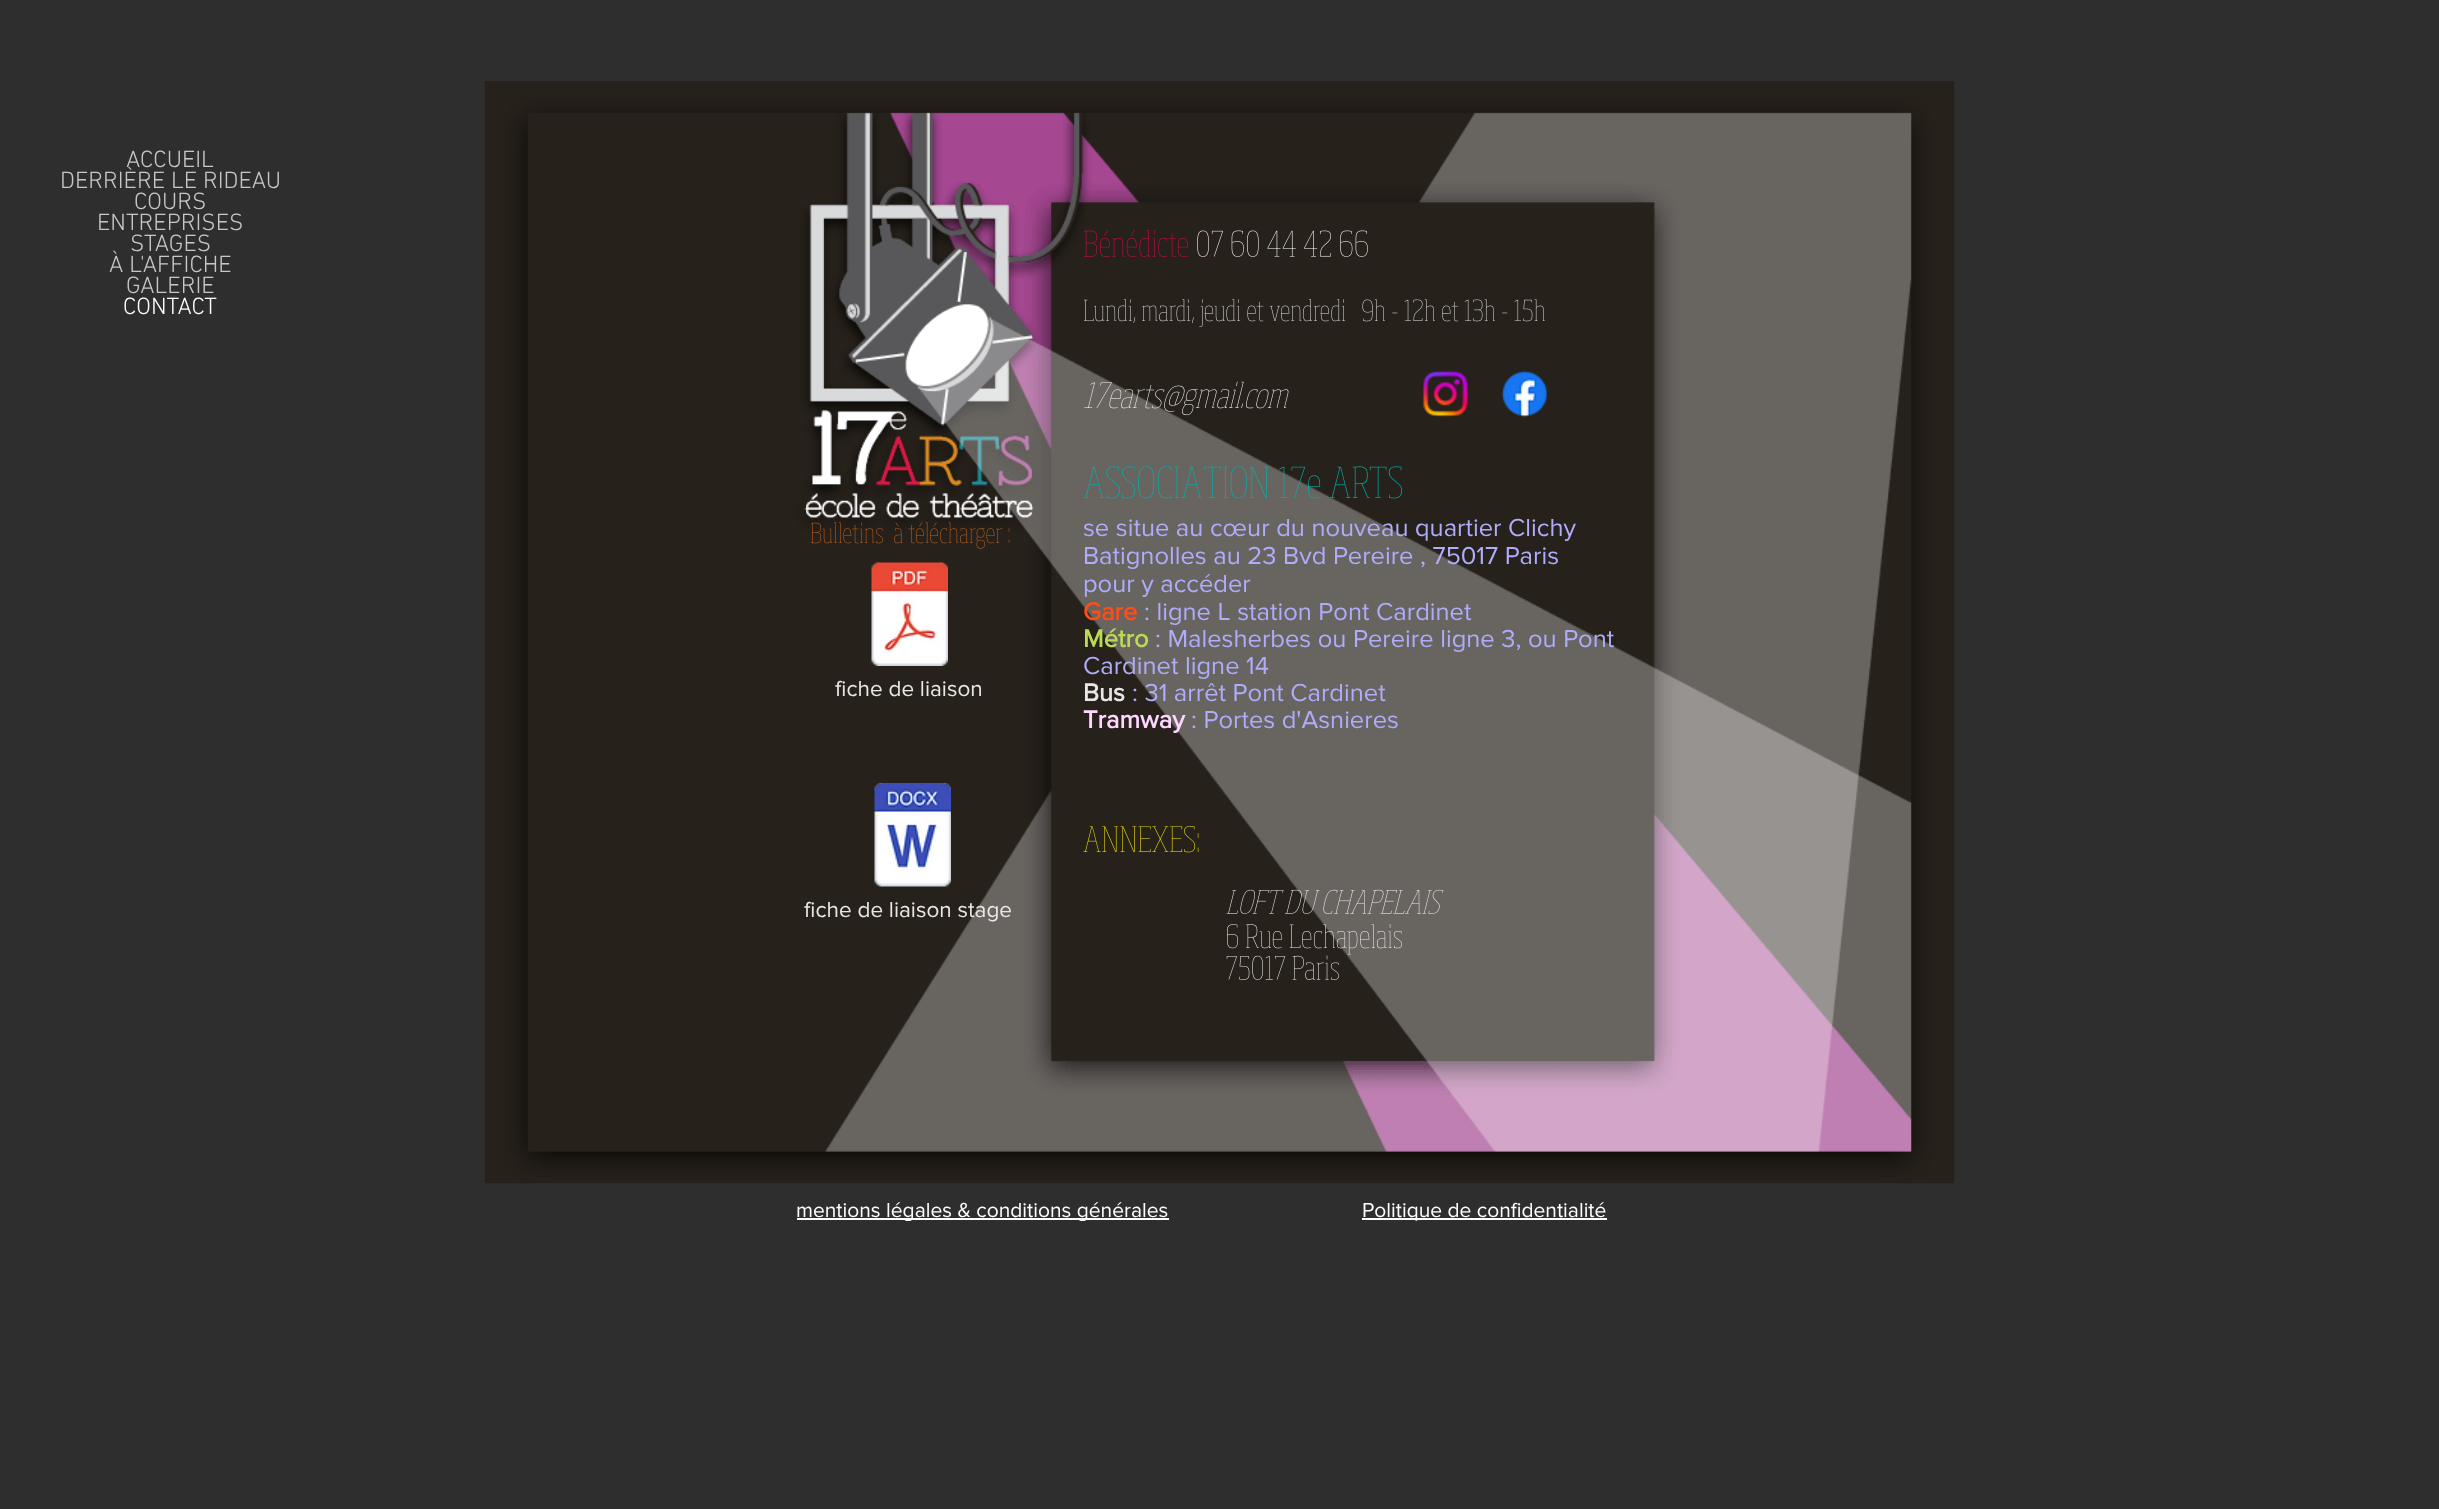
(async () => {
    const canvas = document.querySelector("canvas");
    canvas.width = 2439;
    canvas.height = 1509;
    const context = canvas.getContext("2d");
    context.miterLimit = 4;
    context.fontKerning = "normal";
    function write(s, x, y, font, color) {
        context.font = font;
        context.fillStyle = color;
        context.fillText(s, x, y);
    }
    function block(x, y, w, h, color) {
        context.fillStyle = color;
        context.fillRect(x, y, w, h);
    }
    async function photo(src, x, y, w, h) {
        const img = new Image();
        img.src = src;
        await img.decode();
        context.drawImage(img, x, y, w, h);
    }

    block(0, 0, 2439, 1509, "rgb(47, 46, 46)");
    write("ACCUEIL", 126, 167, "300 24px 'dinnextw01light'", "rgb(199, 199, 199)");
    write("DERRIÈRE LE RIDEAU", 60, 188, "300 24px 'dinnextw01light'", "rgb(199, 199, 199)");
    write("COURS", 134, 209, "300 24px 'dinnextw01light'", "rgb(199, 199, 199)");
    write("ENTREPRISES", 97, 230, "300 24px 'dinnextw01light'", "rgb(199, 199, 199)");
    write("STAGES", 130, 251, "300 24px 'dinnextw01light'", "rgb(199, 199, 199)");
    write("À L'AFFICHE", 109, 272, "300 24px 'dinnextw01light'", "rgb(199, 199, 199)");
    write("GALERIE", 126, 293, "300 24px 'dinnextw01light'", "rgb(199, 199, 199)");
    write("CONTACT", 123, 314, "300 24px 'dinnextw01light'", "rgb(255, 255, 255)");
    await photo("media/1.png", 484, 81, 1471, 1103);
    await photo("media/2.png", 1084, 230, 104, 27);
    await photo("media/3.png", 1197, 230, 171, 27);
    await photo("media/4.png", 1084, 299, 424, 28);
    await photo("media/5.png", 1514, 299, 31, 23);
    await photo("media/6.png", 1084, 381, 205, 35);
    await photo("media/7.png", 1422, 370, 47, 47);
    await photo("media/8.png", 1501, 370, 47, 48);
    await photo("media/9.png", 810, 522, 200, 27);
    await photo("media/10.png", 1083, 466, 320, 33);
    write("se situe au cœur du nouveau quartier Clichy", 1083, 536, "25.5px 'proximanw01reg'", "rgb(175, 172, 251)");
    write("Batignolles au 23 Bvd Pereire , 75017 Paris", 1083, 564, "25.5px 'proximanw01reg'", "rgb(175, 172, 251)");
    write("pour y accéder", 1083, 592, "25.5px 'proximanw01reg'", "rgb(175, 172, 251)");
    write("Gare", 1083, 620, "bold 25.5px 'proximanw01reg'", "rgb(252, 78, 26)");
    write(": ligne L station Pont Cardinet", 1144, 620, "25.5px 'proximanw01reg'", "rgb(175, 172, 251)");
    write("Métro", 1083, 647, "bold 25.5px 'proximanw01reg'", "rgb(186, 218, 85)");
    write(": Malesherbes ou Pereire ligne 3, ou Pont", 1155, 647, "25.5px 'proximanw01reg'", "rgb(175, 172, 251)");
    write("Cardinet ligne 14", 1083, 674, "25.5px 'proximanw01reg'", "rgb(175, 172, 251)");
    write("Bus", 1083, 701, "bold 25.5px 'proximanw01reg'", "rgb(232, 230, 230)");
    write(": 31 arrêt Pont Cardinet", 1132, 701, "25.5px 'proximanw01reg'", "rgb(175, 172, 251)");
    write("Tramway", 1083, 728, "bold 25.5px 'proximanw01reg'", "rgb(255, 214, 255)");
    write(": Portes d'Asnieres", 1191, 728, "25.5px 'proximanw01reg'", "rgb(175, 172, 251)");
    await photo("media/11.png", 871, 562, 77, 104);
    write("fiche de liaison", 835, 696, "22.5px 'proximanw01reg'", "rgb(232, 230, 230)");
    await photo("media/12.png", 874, 783, 77, 104);
    await photo("media/13.png", 1083, 826, 116, 27);
    write("fiche de liaison stage", 804, 917, "22.5px 'proximanw01reg'", "rgb(232, 230, 230)");
    await photo("media/14.png", 1226, 889, 218, 25);
    await photo("media/15.png", 1227, 924, 175, 31);
    await photo("media/16.png", 1226, 955, 113, 25);
    block(797, 1218, 372, 2, "rgb(255, 255, 255)");
    write("mentions légales & conditions générales", 796, 1217, "21px 'proximanw01reg'", "rgb(255, 255, 255)");
    block(1362, 1218, 245, 2, "rgb(255, 255, 255)");
    write("Politique de confidentialité", 1362, 1217, "21px 'proximanw01reg'", "rgb(255, 255, 255)");
})();
